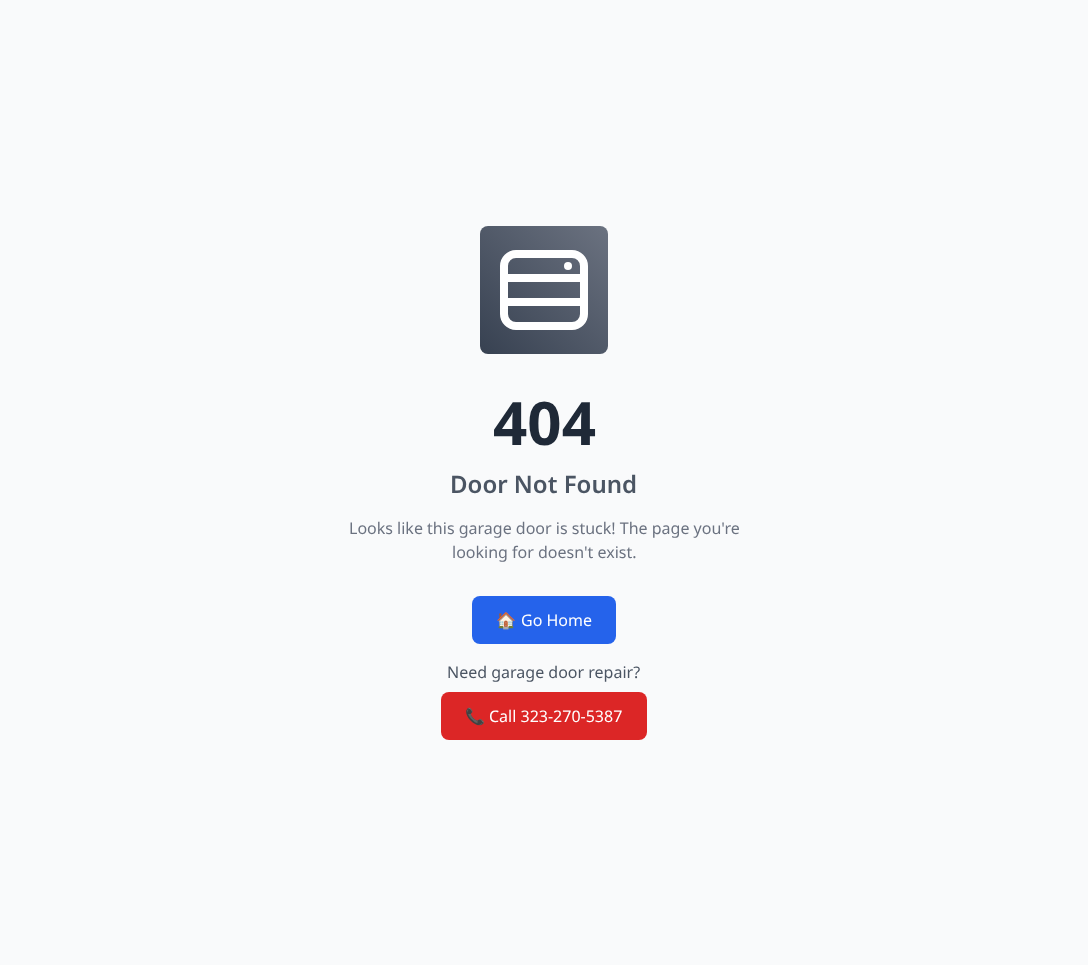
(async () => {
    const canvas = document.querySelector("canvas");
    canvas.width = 1088;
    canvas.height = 965;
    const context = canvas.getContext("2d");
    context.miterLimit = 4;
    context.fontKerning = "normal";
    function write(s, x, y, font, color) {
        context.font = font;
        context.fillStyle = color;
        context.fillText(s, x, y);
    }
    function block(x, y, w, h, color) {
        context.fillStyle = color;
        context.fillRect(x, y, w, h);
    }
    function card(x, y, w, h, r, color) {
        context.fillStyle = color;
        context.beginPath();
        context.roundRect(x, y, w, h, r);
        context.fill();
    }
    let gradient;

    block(0, 0, 1088, 965, "rgb(249, 250, 251)");
    gradient = context.createLinearGradient(480, 354, 608, 226);
    gradient.addColorStop(0, "rgb(55, 65, 81)");
    gradient.addColorStop(1, "rgb(107, 114, 128)");
    context.fillStyle = gradient;
    context.beginPath();
    context.roundRect(480, 226, 128, 128, 8);
    context.fill();
    context.beginPath();
    context.roundRect(504, 254, 80, 72, 12);
    context.strokeStyle = "rgb(255, 255, 255)";
    context.lineWidth = 8;
    context.stroke();
    block(504, 274, 80, 8, "rgb(255, 255, 255)");
    block(504, 298, 80, 8, "rgb(255, 255, 255)");
    context.beginPath();
    context.arc(568, 266, 4, 0, Math.PI * 2);
    context.fill();
    write("404", 493, 445, "bold 60px Noto Sans", "rgb(31, 41, 55)");
    write("Door Not Found", 450, 493, "600 24px Noto Sans", "rgb(75, 85, 99)");
    write("Looks like this garage door is stuck! The page you're", 349, 534, "16px Noto Sans", "rgb(107, 114, 128)");
    write("looking for doesn't exist.", 452, 558, "16px Noto Sans", "rgb(107, 114, 128)");
    card(472, 596, 144, 48, 8, "rgb(37, 99, 235)");
    write("🏠", 496, 626, "16px Noto Color Emoji", "rgb(255, 255, 255)");
    write("Go Home", 521, 626, "16px Noto Sans", "rgb(255, 255, 255)");
    write("Need garage door repair?", 447, 678, "16px Noto Sans", "rgb(75, 85, 99)");
    card(441, 692, 206, 48, 8, "rgb(220, 38, 38)");
    write("📞", 465, 722, "16px Noto Color Emoji", "rgb(255, 255, 255)");
    write("Call 323-270-5387", 489, 722, "16px Noto Sans", "rgb(255, 255, 255)");
})();
